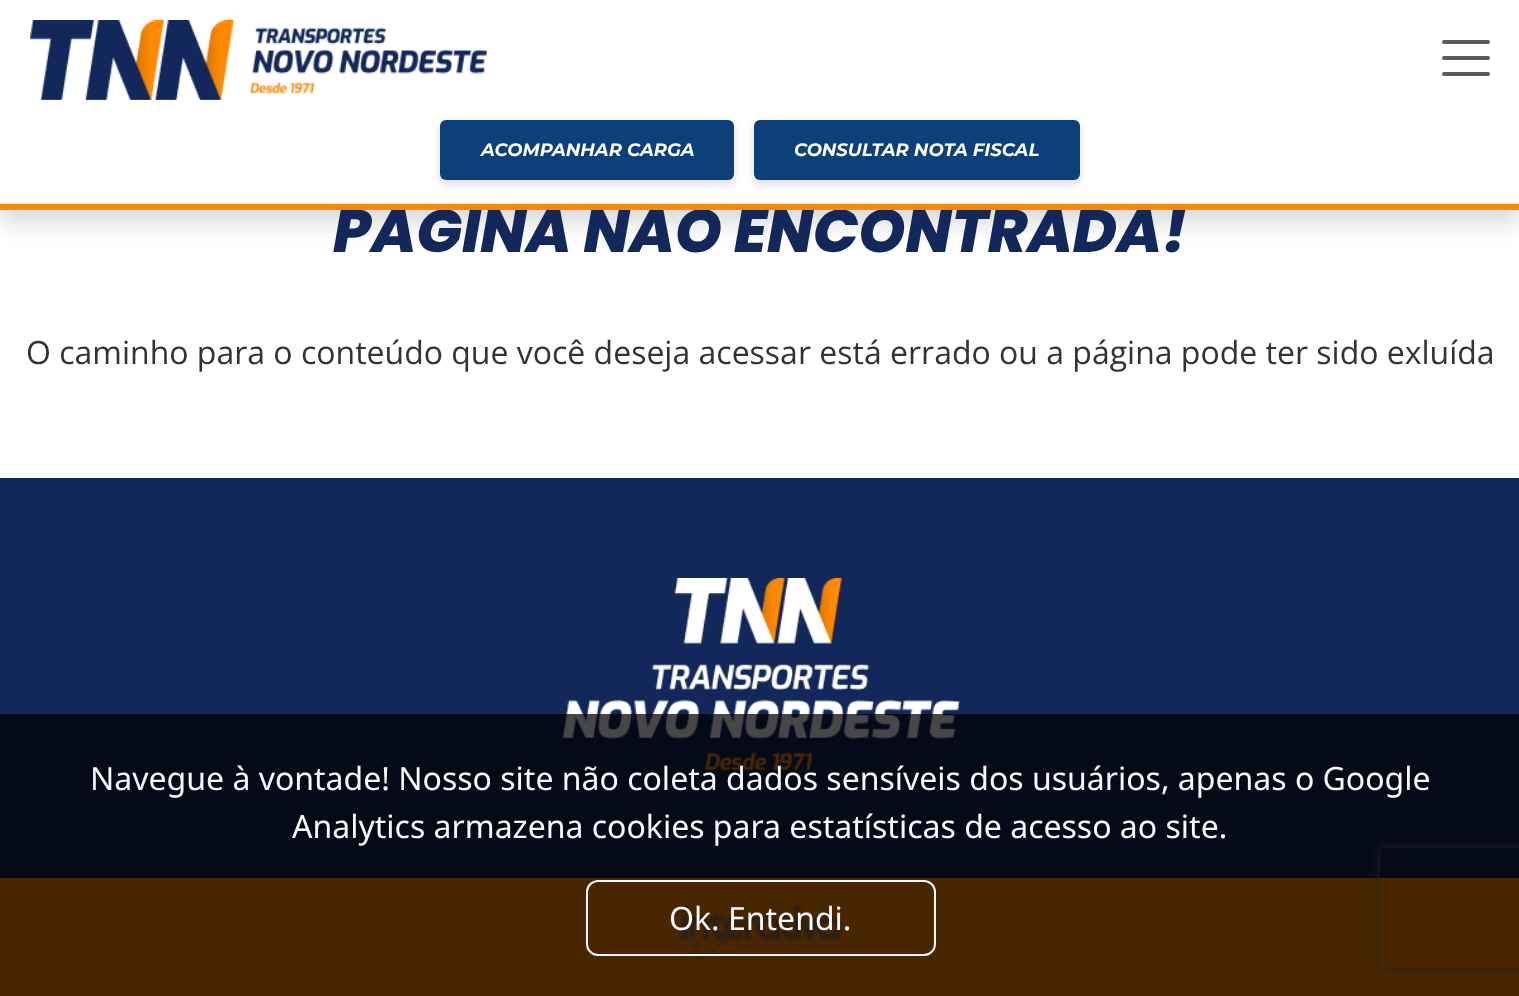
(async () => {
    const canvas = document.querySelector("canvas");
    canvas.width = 1519;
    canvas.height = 996;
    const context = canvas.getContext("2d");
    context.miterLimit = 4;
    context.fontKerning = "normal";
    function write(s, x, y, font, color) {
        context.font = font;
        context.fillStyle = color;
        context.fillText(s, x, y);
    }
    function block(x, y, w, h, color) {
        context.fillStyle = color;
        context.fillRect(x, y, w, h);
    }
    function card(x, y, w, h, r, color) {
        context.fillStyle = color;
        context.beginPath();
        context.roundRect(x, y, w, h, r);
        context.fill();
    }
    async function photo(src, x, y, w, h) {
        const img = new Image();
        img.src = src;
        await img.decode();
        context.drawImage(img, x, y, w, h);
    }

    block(0, 0, 1519, 996, "rgb(255, 255, 255)");
    context.fillStyle = "rgba(0, 0, 0, 0.16)";
    context.filter = "blur(12px)";
    context.beginPath();
    context.rect(0, 12, 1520, 210);
    context.fill();
    context.filter = "none";
    write("PÁGINA NÃO ENCONTRADA!", 333, 252, "italic 800 60px Poppins", "rgb(18, 39, 90)");
    block(0, 0, 1519, 204, "rgb(255, 255, 255)");
    block(0, 204, 1519, 6, "rgb(255, 138, 0)");
    await photo("media/1.png", 30, 20, 458, 80);
    context.beginPath();
    context.moveTo(1444, 42);
    context.lineTo(1488, 42);
    context.moveTo(1444, 58);
    context.lineTo(1488, 58);
    context.moveTo(1444, 74);
    context.lineTo(1488, 74);
    context.strokeStyle = "rgb(89, 92, 95)";
    context.lineWidth = 4;
    context.lineCap = "round";
    context.stroke();
    context.fillStyle = "rgba(0, 0, 0, 0.15)";
    context.filter = "blur(4px)";
    context.beginPath();
    context.roundRect(440, 124, 294, 60, 6);
    context.fill();
    context.filter = "none";
    card(440, 120, 294, 60, 6, "rgb(13, 63, 121)");
    write("ACOMPANHAR CARGA", 481, 156, "italic bold 18px Montserrat", "rgb(255, 255, 255)");
    context.fillStyle = "rgba(0, 0, 0, 0.15)";
    context.filter = "blur(4px)";
    context.beginPath();
    context.roundRect(754, 124, 326, 60, 6);
    context.fill();
    context.filter = "none";
    card(754, 120, 326, 60, 6, "rgb(13, 63, 121)");
    write("CONSULTAR NOTA FISCAL", 794, 156, "italic bold 18px Montserrat", "rgb(255, 255, 255)");
    write("O caminho para o conteúdo que você deseja acessar está errado ou a página pode ter sido exluída", 26, 364, "32px Open Sans", "rgb(51, 51, 51)");
    block(0, 478, 1519, 400, "rgb(18, 39, 90)");
    await photo("media/2.png", 562, 578, 398, 193);
    block(0, 878, 1519, 118, "rgb(255, 138, 0)");
    await photo("media/3.png", 680, 904, 162, 54);
    context.save();
    context.beginPath();
    context.moveTo(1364, 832);
    context.lineTo(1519, 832);
    context.lineTo(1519, 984);
    context.lineTo(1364, 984);
    context.closePath();
    context.moveTo(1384, 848);
    context.lineTo(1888, 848);
    context.bezierCurveTo(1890, 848, 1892, 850, 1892, 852);
    context.lineTo(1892, 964);
    context.bezierCurveTo(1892, 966, 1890, 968, 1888, 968);
    context.lineTo(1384, 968);
    context.bezierCurveTo(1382, 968, 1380, 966, 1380, 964);
    context.lineTo(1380, 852);
    context.bezierCurveTo(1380, 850, 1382, 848, 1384, 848);
    context.closePath();
    context.clip("evenodd");
    context.fillStyle = "rgb(128, 128, 128)";
    context.filter = "blur(5px)";
    context.beginPath();
    context.roundRect(1380, 848, 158, 120, 4);
    context.fill();
    context.filter = "none";
    context.restore();
    block(0, 714, 1519, 282, "rgba(0, 0, 0, 0.72)");
    write("Navegue à vontade! Nosso site não coleta dados sensíveis dos usuários, apenas o Google", 90, 790, "32px Noto Sans", "rgb(248, 249, 250)");
    write("Analytics armazena cookies para estatísticas de acesso ao site.", 292, 838, "32px Noto Sans", "rgb(248, 249, 250)");
    context.beginPath();
    context.roundRect(587, 881, 348, 74, 11);
    context.strokeStyle = "rgb(248, 249, 250)";
    context.lineWidth = 2;
    context.stroke();
    write("Ok. Entendi.", 669, 930, "32px Noto Sans", "rgb(248, 249, 250)");
})();
